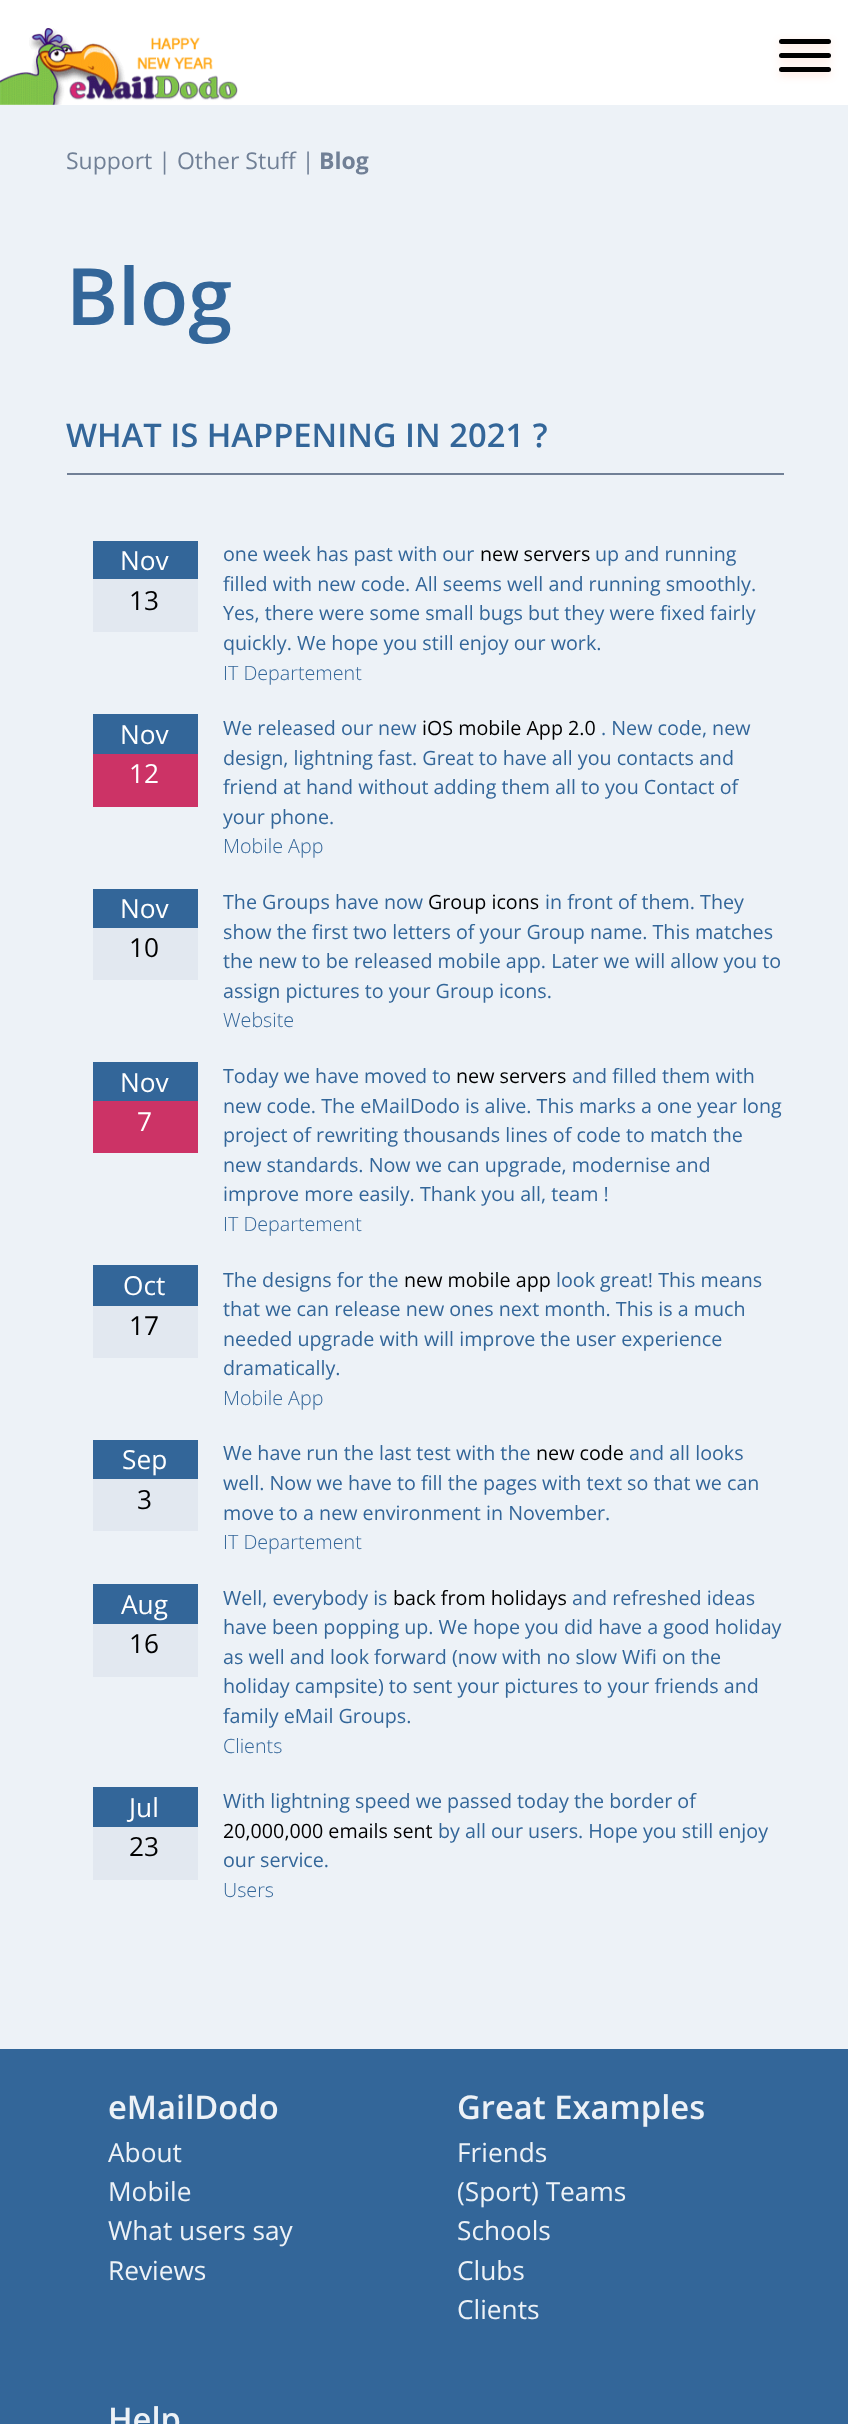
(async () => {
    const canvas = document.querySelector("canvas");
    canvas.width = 848;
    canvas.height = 2424;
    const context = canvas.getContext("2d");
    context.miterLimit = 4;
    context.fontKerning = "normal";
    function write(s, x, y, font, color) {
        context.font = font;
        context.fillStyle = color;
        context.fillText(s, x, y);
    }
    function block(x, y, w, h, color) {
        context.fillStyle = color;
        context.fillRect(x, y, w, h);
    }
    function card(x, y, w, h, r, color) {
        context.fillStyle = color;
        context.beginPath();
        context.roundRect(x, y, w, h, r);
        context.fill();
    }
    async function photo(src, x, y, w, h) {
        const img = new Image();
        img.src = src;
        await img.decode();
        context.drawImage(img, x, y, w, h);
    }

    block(0, 0, 848, 2424, "rgb(237, 242, 247)");
    block(0, 0, 848, 105, "rgb(255, 255, 255)");
    await photo("media/1.png", 0, 28, 238, 77);
    context.fillStyle = "rgba(255, 101, 47, 0.2)";
    context.filter = "blur(4.5px)";
    context.beginPath();
    context.roundRect(779, 56, 52, 5, 2.5);
    context.fill();
    context.filter = "none";
    card(779, 53, 52, 5, 2.5, "rgb(0, 0, 0)");
    context.fillStyle = "rgba(255, 101, 47, 0.2)";
    context.filter = "blur(4.5px)";
    context.beginPath();
    context.roundRect(779, 42, 52, 5, 2.5);
    context.fill();
    context.filter = "none";
    card(779, 39, 52, 5, 2.5, "rgb(0, 0, 0)");
    context.fillStyle = "rgba(255, 101, 47, 0.2)";
    context.filter = "blur(4.5px)";
    context.beginPath();
    context.roundRect(779, 70, 52, 5, 2.5);
    context.fill();
    context.filter = "none";
    card(779, 67, 52, 5, 2.5, "rgb(0, 0, 0)");
    write("Support | Other Stuff |", 66, 169, "23px Open Sans", "rgb(113, 128, 150)");
    write("Blog", 319, 169, "bold 23px Open Sans", "rgb(113, 128, 150)");
    write("Blog", 66, 325, "600 79px Open Sans", "rgb(51, 102, 153)");
    write("WHAT IS HAPPENING IN 2021 ?", 66, 447, "600 32.75px Open Sans", "rgb(51, 102, 153)");
    block(67, 473, 717, 2, "rgb(113, 128, 150)");
    block(93, 541, 105, 38, "rgb(51, 102, 153)");
    write("Nov", 120, 570, "26.25px Open Sans", "rgb(255, 255, 255)");
    block(93, 579, 105, 53, "rgb(226, 232, 240)");
    write("13", 129, 610, "26.25px Open Sans", "rgb(0, 0, 0)");
    write("one week has past with our", 223, 561, "19.7px Open Sans", "rgb(51, 102, 153)");
    write("new servers", 480, 561, "19.7px Open Sans", "rgb(0, 0, 0)");
    write("up and running", 595, 561, "19.7px Open Sans", "rgb(51, 102, 153)");
    write("filled with new code. All seems well and running smoothly.", 223, 591, "19.7px Open Sans", "rgb(51, 102, 153)");
    write("Yes, there were some small bugs but they were fixed fairly", 223, 620, "19.7px Open Sans", "rgb(51, 102, 153)");
    write("quickly. We hope you still enjoy our work.", 223, 650, "19.7px Open Sans", "rgb(51, 102, 153)");
    write("IT Departement", 223, 680, "300 19.7px Open Sans", "rgb(51, 102, 153)");
    block(93, 714, 105, 40, "rgb(51, 102, 153)");
    write("Nov", 120, 744, "26.25px Open Sans", "rgb(255, 255, 255)");
    block(93, 754, 105, 53, "rgb(204, 51, 102)");
    write("12", 129, 783, "26.25px Open Sans", "rgb(255, 255, 255)");
    write("We released our new", 223, 735, "19.7px Open Sans", "rgb(51, 102, 153)");
    write("iOS mobile App 2.0", 422, 735, "19.7px Open Sans", "rgb(0, 0, 0)");
    write(". New code, new", 601, 735, "19.7px Open Sans", "rgb(51, 102, 153)");
    write("design, lightning fast. Great to have all you contacts and", 223, 765, "19.7px Open Sans", "rgb(51, 102, 153)");
    write("friend at hand without adding them all to you Contact of", 223, 794, "19.7px Open Sans", "rgb(51, 102, 153)");
    write("your phone.", 223, 824, "19.7px Open Sans", "rgb(51, 102, 153)");
    write("Mobile App", 223, 853, "300 19.7px Open Sans", "rgb(51, 102, 153)");
    block(93, 889, 105, 39, "rgb(51, 102, 153)");
    write("Nov", 120, 918, "26.25px Open Sans", "rgb(255, 255, 255)");
    block(93, 928, 105, 52, "rgb(226, 232, 240)");
    write("10", 129, 957, "26.25px Open Sans", "rgb(0, 0, 0)");
    write("The Groups have now", 223, 909, "19.7px Open Sans", "rgb(51, 102, 153)");
    write("Group icons", 428, 909, "19.7px Open Sans", "rgb(0, 0, 0)");
    write("in front of them. They", 545, 909, "19.7px Open Sans", "rgb(51, 102, 153)");
    write("show the first two letters of your Group name. This matches", 223, 939, "19.7px Open Sans", "rgb(51, 102, 153)");
    write("the new to be released mobile app. Later we will allow you to", 223, 968, "19.7px Open Sans", "rgb(51, 102, 153)");
    write("assign pictures to your Group icons.", 223, 998, "19.7px Open Sans", "rgb(51, 102, 153)");
    write("Website", 223, 1027, "300 19.7px Open Sans", "rgb(51, 102, 153)");
    block(93, 1062, 105, 39, "rgb(51, 102, 153)");
    write("Nov", 120, 1092, "26.25px Open Sans", "rgb(255, 255, 255)");
    block(93, 1101, 105, 52, "rgb(204, 51, 102)");
    write("7", 137, 1131, "26.25px Open Sans", "rgb(255, 255, 255)");
    write("Today we have moved to", 223, 1083, "19.7px Open Sans", "rgb(51, 102, 153)");
    write("new servers", 456, 1083, "19.7px Open Sans", "rgb(0, 0, 0)");
    write("and filled them with", 572, 1083, "19.7px Open Sans", "rgb(51, 102, 153)");
    write("new code. The eMailDodo is alive. This marks a one year long", 223, 1113, "19.7px Open Sans", "rgb(51, 102, 153)");
    write("project of rewriting thousands lines of code to match the", 223, 1142, "19.7px Open Sans", "rgb(51, 102, 153)");
    write("new standards. Now we can upgrade, modernise and", 223, 1172, "19.7px Open Sans", "rgb(51, 102, 153)");
    write("improve more easily. Thank you all, team !", 223, 1201, "19.7px Open Sans", "rgb(51, 102, 153)");
    write("IT Departement", 223, 1231, "300 19.7px Open Sans", "rgb(51, 102, 153)");
    block(93, 1265, 105, 41, "rgb(51, 102, 153)");
    write("Oct", 123, 1295, "26.25px Open Sans", "rgb(255, 255, 255)");
    block(93, 1306, 105, 52, "rgb(226, 232, 240)");
    write("17", 129, 1335, "26.25px Open Sans", "rgb(0, 0, 0)");
    write("The designs for the", 223, 1287, "19.7px Open Sans", "rgb(51, 102, 153)");
    write("new mobile app", 404, 1287, "19.7px Open Sans", "rgb(0, 0, 0)");
    write("look great! This means", 556, 1287, "19.7px Open Sans", "rgb(51, 102, 153)");
    write("that we can release new ones next month. This is a much", 223, 1316, "19.7px Open Sans", "rgb(51, 102, 153)");
    write("needed upgrade with will improve the user experience", 223, 1346, "19.7px Open Sans", "rgb(51, 102, 153)");
    write("dramatically.", 223, 1375, "19.7px Open Sans", "rgb(51, 102, 153)");
    write("Mobile App", 223, 1405, "300 19.7px Open Sans", "rgb(51, 102, 153)");
    block(93, 1440, 105, 39, "rgb(51, 102, 153)");
    write("Sep", 122, 1469, "26.25px Open Sans", "rgb(255, 255, 255)");
    block(93, 1479, 105, 52, "rgb(226, 232, 240)");
    write("3", 137, 1509, "26.25px Open Sans", "rgb(0, 0, 0)");
    write("We have run the last test with the", 223, 1460, "19.7px Open Sans", "rgb(51, 102, 153)");
    write("new code", 536, 1460, "19.7px Open Sans", "rgb(0, 0, 0)");
    write("and all looks", 629, 1460, "19.7px Open Sans", "rgb(51, 102, 153)");
    write("well. Now we have to fill the pages with text so that we can", 223, 1490, "19.7px Open Sans", "rgb(51, 102, 153)");
    write("move to a new environment in November.", 223, 1520, "19.7px Open Sans", "rgb(51, 102, 153)");
    write("IT Departement", 223, 1549, "300 19.7px Open Sans", "rgb(51, 102, 153)");
    block(93, 1584, 105, 40, "rgb(51, 102, 153)");
    write("Aug", 121, 1614, "26.25px Open Sans", "rgb(255, 255, 255)");
    block(93, 1624, 105, 53, "rgb(226, 232, 240)");
    write("16", 129, 1653, "26.25px Open Sans", "rgb(0, 0, 0)");
    write("Well, everybody is", 223, 1605, "19.7px Open Sans", "rgb(51, 102, 153)");
    write("back from holidays", 393, 1605, "19.7px Open Sans", "rgb(0, 0, 0)");
    write("and refreshed ideas", 572, 1605, "19.7px Open Sans", "rgb(51, 102, 153)");
    write("have been popping up. We hope you did have a good holiday", 223, 1634, "19.7px Open Sans", "rgb(51, 102, 153)");
    write("as well and look forward (now with no slow Wifi on the", 223, 1664, "19.7px Open Sans", "rgb(51, 102, 153)");
    write("holiday campsite) to sent your pictures to your friends and", 223, 1693, "19.7px Open Sans", "rgb(51, 102, 153)");
    write("family eMail Groups.", 223, 1723, "19.7px Open Sans", "rgb(51, 102, 153)");
    write("Clients", 223, 1753, "300 19.7px Open Sans", "rgb(51, 102, 153)");
    block(93, 1787, 105, 40, "rgb(51, 102, 153)");
    write("Jul", 129, 1817, "26.25px Open Sans", "rgb(255, 255, 255)");
    block(93, 1827, 105, 53, "rgb(226, 232, 240)");
    write("23", 129, 1856, "26.25px Open Sans", "rgb(0, 0, 0)");
    write("With lightning speed we passed today the border of", 223, 1808, "19.7px Open Sans", "rgb(51, 102, 153)");
    write("20,000,000 emails sent", 223, 1838, "19.7px Open Sans", "rgb(0, 0, 0)");
    write("by all our users. Hope you still enjoy", 438, 1838, "19.7px Open Sans", "rgb(51, 102, 153)");
    write("our service.", 223, 1867, "19.7px Open Sans", "rgb(51, 102, 153)");
    write("Users", 223, 1897, "300 19.7px Open Sans", "rgb(51, 102, 153)");
    block(0, 2049, 848, 375, "rgb(51, 102, 153)");
    write("eMailDodo", 108, 2119, "600 32.75px Open Sans", "rgb(237, 242, 247)");
    write("About", 108, 2162, "26.25px Open Sans", "rgb(237, 242, 247)");
    write("Mobile", 108, 2201, "26.25px Open Sans", "rgb(237, 242, 247)");
    write("What users say", 108, 2240, "26.25px Open Sans", "rgb(237, 242, 247)");
    write("Reviews", 108, 2280, "26.25px Open Sans", "rgb(237, 242, 247)");
    write("Great Examples", 457, 2119, "600 32.75px Open Sans", "rgb(237, 242, 247)");
    write("Friends", 457, 2162, "26.25px Open Sans", "rgb(237, 242, 247)");
    write("(Sport) Teams", 457, 2201, "26.25px Open Sans", "rgb(237, 242, 247)");
    write("Schools", 457, 2240, "26.25px Open Sans", "rgb(237, 242, 247)");
    write("Clubs", 457, 2280, "26.25px Open Sans", "rgb(237, 242, 247)");
    write("Clients", 457, 2319, "26.25px Open Sans", "rgb(237, 242, 247)");
    write("Help", 108, 2431, "600 32.75px Open Sans", "rgb(237, 242, 247)");
})();
